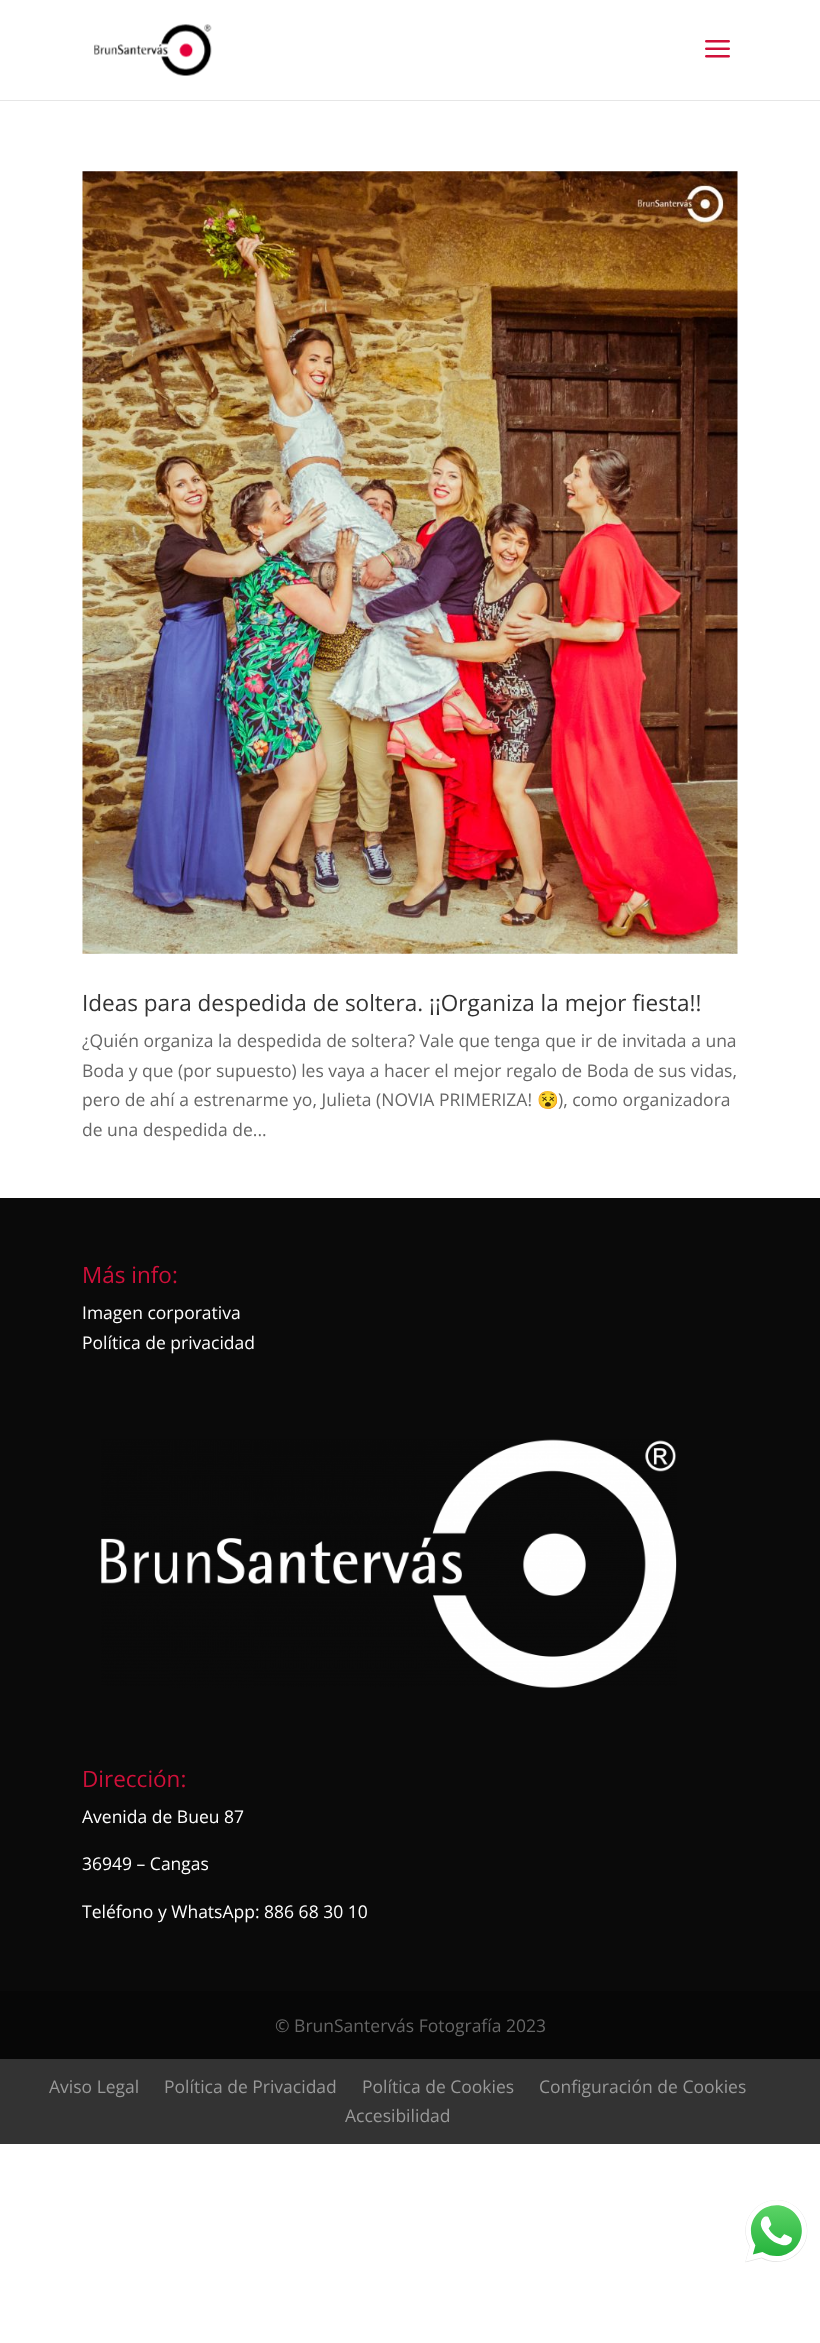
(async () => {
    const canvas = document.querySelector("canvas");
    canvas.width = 820;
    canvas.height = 2343;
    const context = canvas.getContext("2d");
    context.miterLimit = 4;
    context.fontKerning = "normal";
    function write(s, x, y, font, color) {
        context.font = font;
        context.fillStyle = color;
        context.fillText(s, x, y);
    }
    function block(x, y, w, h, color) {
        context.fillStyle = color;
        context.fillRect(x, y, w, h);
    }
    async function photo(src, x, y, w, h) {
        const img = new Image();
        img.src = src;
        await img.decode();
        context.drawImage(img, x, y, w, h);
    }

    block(0, 0, 820, 2343, "rgb(255, 255, 255)");
    block(0, 100, 820, 1, "rgb(230, 230, 230)");
    await photo("media/1.png", 94, 24, 118, 52);
    await photo("media/2.png", 705, 40, 25, 18);
    await photo("media/3.png", 82, 171, 656, 783);
    write("Ideas para despedida de soltera. ¡¡Organiza la mejor fiesta!!", 82, 1011, "22.5px Open Sans", "rgb(51, 51, 51)");
    write("¿Quién organiza la despedida de soltera? Vale que tenga que ir de invitada a una", 82, 1047, "17.5px Open Sans", "rgb(102, 102, 102)");
    write("Boda y que (por supuesto) les vaya a hacer el mejor regalo de Boda de sus vidas,", 82, 1077, "17.5px Open Sans", "rgb(102, 102, 102)");
    write("pero de ahí a estrenarme yo, Julieta (NOVIA PRIMERIZA!", 82, 1106, "17.5px Open Sans", "rgb(102, 102, 102)");
    write("😵", 537, 1106, "17.5px Noto Color Emoji", "rgb(102, 102, 102)");
    write("), como organizadora", 558, 1106, "17.5px Open Sans", "rgb(102, 102, 102)");
    write("de una despedida de...", 82, 1136, "17.5px Open Sans", "rgb(102, 102, 102)");
    block(0, 1198, 820, 793, "rgb(10, 10, 10)");
    write("Más info:", 82, 1283, "22.5px Open Sans", "rgb(208, 16, 58)");
    write("Imagen corporativa", 82, 1319, "17.5px Open Sans", "rgb(255, 255, 255)");
    write("Política de privacidad", 82, 1349, "17.5px Open Sans", "rgb(255, 255, 255)");
    await photo("media/4.png", 101, 1439, 576, 249);
    write("Dirección:", 82, 1787, "22.5px Open Sans", "rgb(208, 16, 58)");
    write("Avenida de Bueu 87", 82, 1823, "17.5px Open Sans", "rgb(255, 255, 255)");
    write("36949 – Cangas", 82, 1870, "17.5px Open Sans", "rgb(255, 255, 255)");
    write("Teléfono y WhatsApp: 886 68 30 10", 82, 1918, "17.5px Open Sans", "rgb(255, 255, 255)");
    block(0, 1991, 820, 68, "rgb(7, 7, 7)");
    write("© BrunSantervás Fotografía 2023", 275, 2032, "17.5px Open Sans", "rgb(102, 102, 102)");
    block(0, 2059, 820, 85, "rgb(51, 51, 51)");
    write("Aviso Legal", 49, 2093, "17.5px Open Sans", "rgb(153, 153, 153)");
    write("Política de Privacidad", 164, 2093, "17.5px Open Sans", "rgb(153, 153, 153)");
    write("Política de Cookies", 362, 2093, "17.5px Open Sans", "rgb(153, 153, 153)");
    write("Configuración de Cookies", 539, 2093, "17.5px Open Sans", "rgb(153, 153, 153)");
    write("Accesibilidad", 345, 2122, "17.5px Open Sans", "rgb(153, 153, 153)");
    await photo("media/5.png", 745, 2200, 63, 63);
})();
